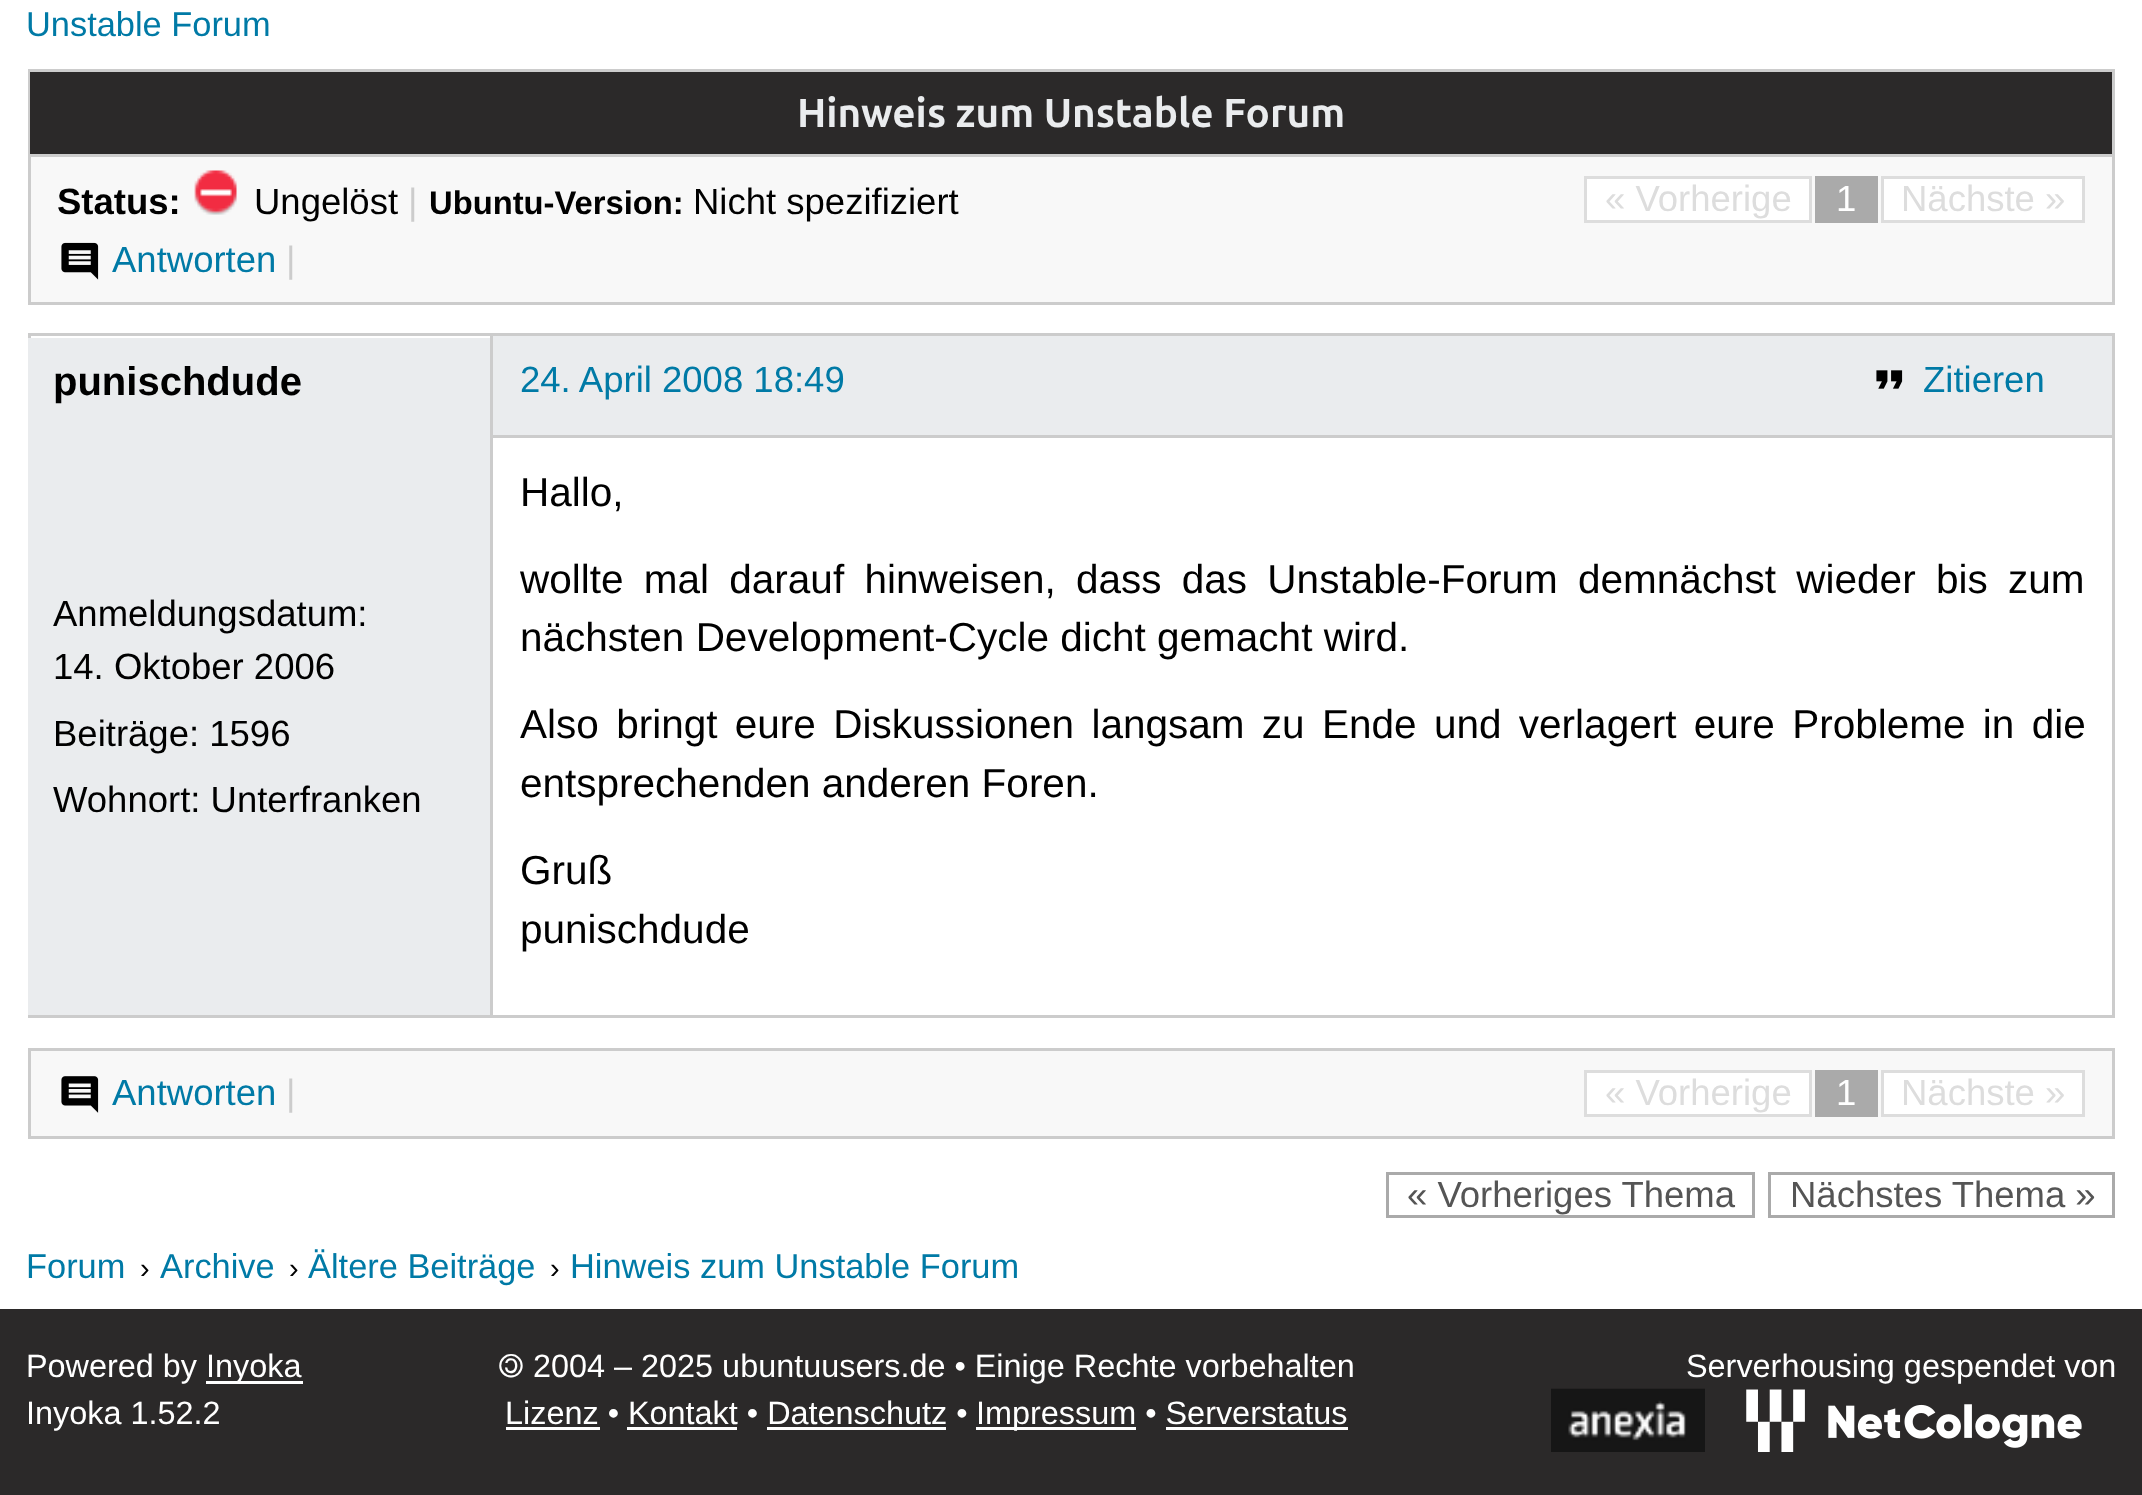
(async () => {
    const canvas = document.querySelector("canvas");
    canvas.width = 2142;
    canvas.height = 1495;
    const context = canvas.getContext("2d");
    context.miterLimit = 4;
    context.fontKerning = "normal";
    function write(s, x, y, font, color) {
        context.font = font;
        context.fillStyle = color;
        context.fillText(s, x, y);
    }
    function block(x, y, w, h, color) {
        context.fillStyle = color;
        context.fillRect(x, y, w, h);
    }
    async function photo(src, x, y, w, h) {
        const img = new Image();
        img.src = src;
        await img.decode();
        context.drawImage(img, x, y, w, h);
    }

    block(0, 0, 2142, 1495, "rgb(255, 255, 255)");
    write("Unstable Forum", 26, 36, "34.4px Liberation Sans", "rgb(0, 122, 166)");
    block(31, 157, 2081, 145, "rgb(248, 248, 248)");
    context.strokeStyle = "rgb(204, 204, 204)";
    context.lineWidth = 3;
    context.strokeRect(29.5, 70.5, 2084, 233);
    block(30, 72, 2082, 82, "rgb(43, 41, 41)");
    block(30, 154, 2082, 3, "rgb(204, 204, 204)");
    write("Hinweis zum Unstable Forum", 797, 127, "bold 40.5px Ubuntu", "rgb(234, 236, 238)");
    write("Status:", 57, 214, "bold 36.5px Liberation Sans", "rgb(0, 0, 0)");
    await photo("media/1.png", 194, 170, 43, 45);
    write("Ungelöst", 254, 214, "36.5px Liberation Sans", "rgb(0, 0, 0)");
    write("|", 408, 214, "36.5px Liberation Sans", "rgb(204, 204, 204)");
    write("Ubuntu-Version:", 429, 214, "bold 32.75px Liberation Sans", "rgb(0, 0, 0)");
    write("Nicht spezifiziert", 693, 214, "36.5px Liberation Sans", "rgb(0, 0, 0)");
    context.fillStyle = "rgb(255, 255, 255)";
    context.beginPath();
    context.rect(1585.5, 177.5, 225, 44);
    context.fill();
    context.strokeStyle = "rgb(221, 221, 221)";
    context.stroke();
    write("« Vorherige", 1605, 211, "36.5px Liberation Sans", "rgb(221, 221, 221)");
    block(1815, 176, 63, 47, "rgb(170, 170, 170)");
    write("1", 1836, 211, "36.5px Liberation Sans", "rgb(255, 255, 255)");
    context.beginPath();
    context.rect(1882.5, 177.5, 201, 44);
    context.fill();
    context.stroke();
    write("Nächste »", 1901, 211, "36.5px Liberation Sans", "rgb(221, 221, 221)");
    await photo("media/2.png", 61, 242, 38, 38);
    write("Antworten", 112, 272, "36.5px Liberation Sans", "rgb(0, 122, 166)");
    write("|", 286, 272, "36.5px Liberation Sans", "rgb(204, 204, 204)");
    block(28, 333, 2087, 3, "rgb(204, 204, 204)");
    block(2112, 333, 3, 685, "rgb(204, 204, 204)");
    block(28, 1015, 2087, 3, "rgb(204, 204, 204)");
    block(28, 333, 3, 685, "rgb(204, 204, 204)");
    block(492, 435, 1620, 3, "rgb(204, 204, 204)");
    block(490, 333, 3, 685, "rgb(204, 204, 204)");
    block(28, 338, 462, 677, "rgb(234, 236, 238)");
    write("punischdude", 53, 395, "bold 40px Liberation Sans", "rgb(0, 0, 0)");
    write("Anmeldungsdatum:", 53, 626, "36.5px Liberation Sans", "rgb(0, 0, 0)");
    write("14. Oktober 2006", 53, 679, "36.5px Liberation Sans", "rgb(0, 0, 0)");
    write("Beiträge: 1596", 53, 746, "36.5px Liberation Sans", "rgb(0, 0, 0)");
    write("Wohnort: Unterfranken", 53, 812, "36.5px Liberation Sans", "rgb(0, 0, 0)");
    block(493, 336, 1619, 99, "rgb(234, 236, 238)");
    write("24. April 2008 18:49", 520, 392, "36.5px Liberation Sans", "rgb(0, 122, 166)");
    await photo("media/3.png", 1876, 370, 27, 19);
    write("Zitieren", 1923, 392, "36.5px Liberation Sans", "rgb(0, 122, 166)");
    write("Hallo,", 520, 506, "40.5px Liberation Sans", "rgb(0, 0, 0)");
    context.wordSpacing = "9px";
    write("wollte mal darauf hinweisen, dass das Unstable-Forum demnächst wieder bis zum", 520, 593, "40.5px Liberation Sans", "rgb(0, 0, 0)");
    context.wordSpacing = "0px";
    write("nächsten Development-Cycle dicht gemacht wird.", 520, 651, "40.5px Liberation Sans", "rgb(0, 0, 0)");
    context.wordSpacing = "6.1px";
    write("Also bringt eure Diskussionen langsam zu Ende und verlagert eure Probleme in die", 520, 738, "40.5px Liberation Sans", "rgb(0, 0, 0)");
    context.wordSpacing = "0px";
    write("entsprechenden anderen Foren.", 520, 797, "40.5px Liberation Sans", "rgb(0, 0, 0)");
    write("Gruß", 520, 884, "40.5px Liberation Sans", "rgb(0, 0, 0)");
    write("punischdude", 520, 943, "40.5px Liberation Sans", "rgb(0, 0, 0)");
    context.fillStyle = "rgb(248, 248, 248)";
    context.beginPath();
    context.rect(29.5, 1049.5, 2084, 88);
    context.fill();
    context.strokeStyle = "rgb(204, 204, 204)";
    context.stroke();
    await photo("media/4.png", 61, 1076, 38, 37);
    write("Antworten", 112, 1105, "36.5px Liberation Sans", "rgb(0, 122, 166)");
    write("|", 286, 1105, "36.5px Liberation Sans", "rgb(204, 204, 204)");
    context.fillStyle = "rgb(255, 255, 255)";
    context.beginPath();
    context.rect(1585.5, 1071.5, 225, 44);
    context.fill();
    context.strokeStyle = "rgb(221, 221, 221)";
    context.stroke();
    write("« Vorherige", 1605, 1105, "36.5px Liberation Sans", "rgb(221, 221, 221)");
    block(1815, 1070, 63, 47, "rgb(170, 170, 170)");
    write("1", 1836, 1105, "36.5px Liberation Sans", "rgb(255, 255, 255)");
    context.beginPath();
    context.rect(1882.5, 1071.5, 201, 44);
    context.fill();
    context.stroke();
    write("Nächste »", 1901, 1105, "36.5px Liberation Sans", "rgb(221, 221, 221)");
    context.strokeStyle = "rgb(170, 170, 170)";
    context.strokeRect(1387.5, 1173.5, 366, 43);
    write("« Vorheriges Thema", 1407, 1207, "36.5px Liberation Sans", "rgb(85, 85, 85)");
    context.strokeRect(1769.5, 1173.5, 344, 43);
    write("Nächstes Thema »", 1790, 1207, "36.5px Liberation Sans", "rgb(85, 85, 85)");
    write("Forum", 26, 1278, "34.4px Liberation Sans", "rgb(0, 122, 166)");
    write("›", 140, 1278, "29px Liberation Sans", "rgb(0, 0, 0)");
    write("Archive", 160, 1278, "34.4px Liberation Sans", "rgb(0, 122, 166)");
    write("›", 289, 1278, "29px Liberation Sans", "rgb(0, 0, 0)");
    write("Ältere Beiträge", 308, 1278, "34.4px Liberation Sans", "rgb(0, 122, 166)");
    write("›", 550, 1278, "29px Liberation Sans", "rgb(0, 0, 0)");
    write("Hinweis zum Unstable Forum", 570, 1278, "34.4px Liberation Sans", "rgb(0, 122, 166)");
    block(0, 1309, 2142, 186, "rgb(43, 41, 41)");
    write("Powered by", 26, 1377, "32.4px Liberation Sans", "rgb(255, 255, 255)");
    block(206, 1381, 97, 3, "rgb(255, 255, 255)");
    write("Inyoka", 206, 1377, "32.4px Liberation Sans", "rgb(255, 255, 255)");
    write("Inyoka 1.52.2", 26, 1424, "32.4px Liberation Sans", "rgb(255, 255, 255)");
    write("🄯", 498, 1377, "32.4px FreeSans", "rgb(255, 255, 255)");
    write("2004 – 2025 ubuntuusers.de • Einige Rechte vorbehalten", 533, 1377, "32.4px Liberation Sans", "rgb(255, 255, 255)");
    write("Lizenz • Kontakt • Datenschutz •", 505, 1424, "32.4px Liberation Sans", "rgb(255, 255, 255)");
    block(506, 1427, 94, 3, "rgb(255, 255, 255)");
    block(976, 1427, 160, 3, "rgb(255, 255, 255)");
    write("Impressum • Serverstatus", 976, 1424, "32.4px Liberation Sans", "rgb(255, 255, 255)");
    block(627, 1427, 110, 3, "rgb(255, 255, 255)");
    block(767, 1427, 179, 3, "rgb(255, 255, 255)");
    block(1166, 1427, 182, 3, "rgb(255, 255, 255)");
    write("Serverhousing gespendet von", 1686, 1377, "32.4px Liberation Sans", "rgb(255, 255, 255)");
    block(1568, 1400, 118, 41, "rgb(255, 255, 255)");
    await photo("media/5.png", 1551, 1388, 154, 64);
    await photo("media/6.png", 1746, 1389, 336, 63);
})();
